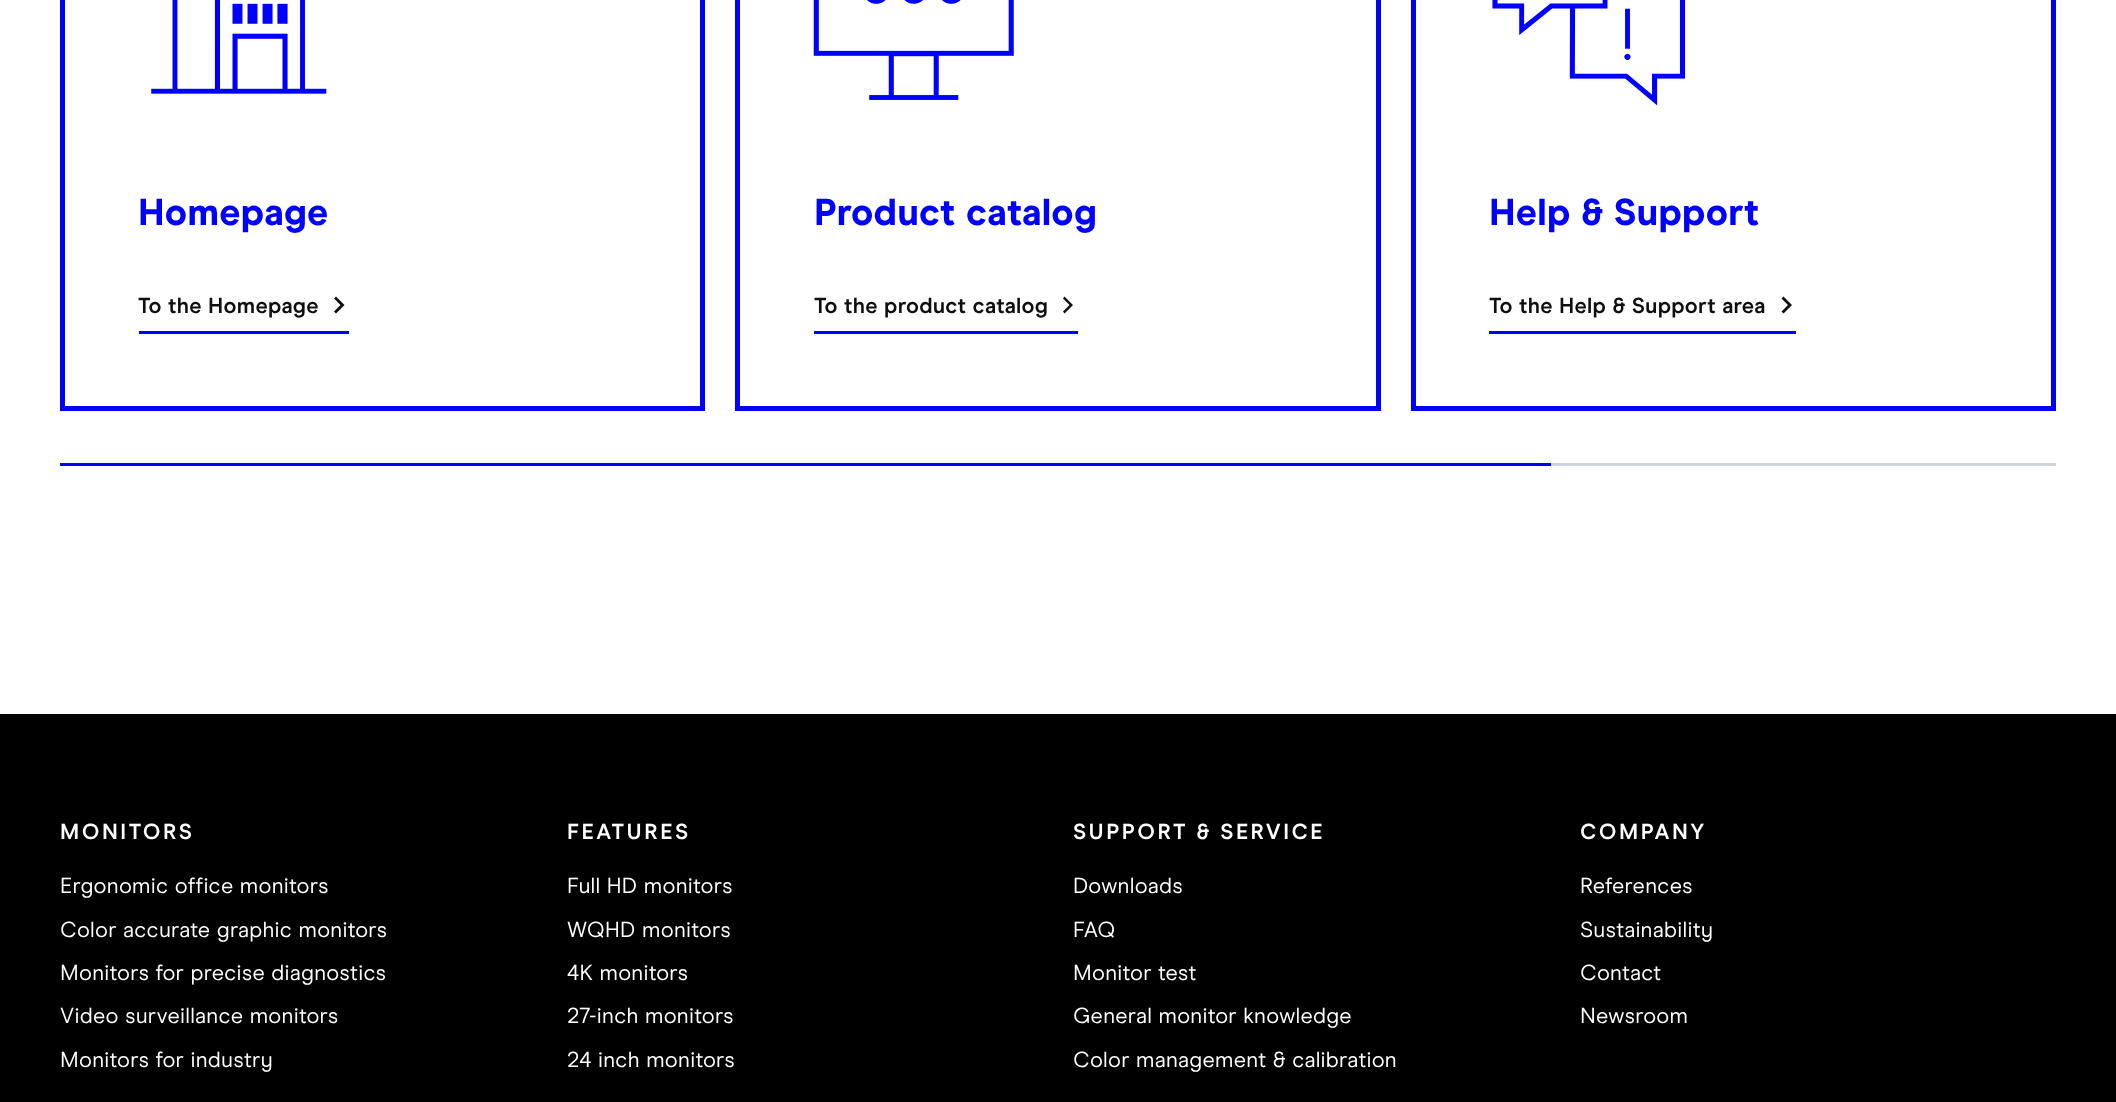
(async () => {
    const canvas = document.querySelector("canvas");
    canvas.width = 2116;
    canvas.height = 1102;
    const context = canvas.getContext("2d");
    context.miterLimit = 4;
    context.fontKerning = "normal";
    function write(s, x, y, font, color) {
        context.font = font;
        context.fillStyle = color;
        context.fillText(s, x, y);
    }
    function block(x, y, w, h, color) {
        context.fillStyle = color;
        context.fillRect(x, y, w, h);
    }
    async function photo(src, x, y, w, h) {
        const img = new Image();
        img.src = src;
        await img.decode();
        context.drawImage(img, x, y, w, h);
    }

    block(0, 0, 2116, 1102, "rgb(255, 255, 255)");
    context.strokeStyle = "rgb(0, 0, 255)";
    context.lineWidth = 5;
    context.strokeRect(62.5, -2.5, 640, 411);
    await photo("media/1.png", 151, 0, 176, 94);
    context.letterSpacing = "0.25px";
    write("Homepage", 138, 225, "800 37.5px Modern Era", "rgb(0, 0, 255)");
    write("To the Homepage", 138, 313, "bold 21.75px Modern Era", "rgb(15, 15, 15)");
    context.beginPath();
    context.moveTo(334, 298.5);
    context.lineTo(336, 296.5);
    context.lineTo(344.5, 305);
    context.lineTo(336, 313.5);
    context.lineTo(334, 311.5);
    context.lineTo(340.5, 305);
    context.closePath();
    context.fill();
    block(139, 331, 210, 3, "rgb(0, 0, 255)");
    context.strokeRect(737.5, -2.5, 641, 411);
    await photo("media/2.png", 813, 0, 201, 100);
    write("Product catalog", 814, 225, "800 37.5px Modern Era", "rgb(0, 0, 255)");
    write("To the product catalog", 814, 313, "bold 21.75px Modern Era", "rgb(15, 15, 15)");
    context.beginPath();
    context.moveTo(1063, 298.5);
    context.lineTo(1064.5, 296.5);
    context.lineTo(1073, 305);
    context.lineTo(1064.5, 313.5);
    context.lineTo(1063, 311.5);
    context.lineTo(1069.5, 305);
    context.closePath();
    context.fill();
    block(814, 331, 264, 3, "rgb(0, 0, 255)");
    context.strokeRect(1413.5, -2.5, 640, 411);
    await photo("media/3.png", 1492, 0, 194, 106);
    write("Help & Support", 1489, 225, "800 37.5px Modern Era", "rgb(0, 0, 255)");
    write("To the Help & Support area", 1489, 313, "bold 21.75px Modern Era", "rgb(15, 15, 15)");
    context.beginPath();
    context.moveTo(1781.5, 298.5);
    context.lineTo(1783.5, 296.5);
    context.lineTo(1792, 305);
    context.lineTo(1783.5, 313.5);
    context.lineTo(1781.5, 311.5);
    context.lineTo(1788, 305);
    context.closePath();
    context.fill();
    block(1489, 331, 307, 3, "rgb(0, 0, 255)");
    block(60, 463, 1491, 3, "rgb(0, 0, 255)");
    block(1551, 463, 505, 3, "rgb(206, 211, 217)");
    block(0, 714, 2116, 388, "rgb(0, 0, 0)");
    context.letterSpacing = "2.5px";
    write("MONITORS", 60, 839, "bold 21.75px Modern Era", "rgb(255, 255, 255)");
    context.letterSpacing = "0.25px";
    write("Ergonomic office monitors", 60, 893, "21.75px Modern Era", "rgb(255, 255, 255)");
    write("Color accurate graphic monitors", 60, 937, "21.75px Modern Era", "rgb(255, 255, 255)");
    write("Monitors for precise diagnostics", 60, 980, "21.75px Modern Era", "rgb(255, 255, 255)");
    write("Video surveillance monitors", 60, 1023, "21.75px Modern Era", "rgb(255, 255, 255)");
    write("Monitors for industry", 60, 1067, "21.75px Modern Era", "rgb(255, 255, 255)");
    context.letterSpacing = "2.5px";
    write("FEATURES", 567, 839, "bold 21.75px Modern Era", "rgb(255, 255, 255)");
    context.letterSpacing = "0.25px";
    write("Full HD monitors", 567, 893, "21.75px Modern Era", "rgb(255, 255, 255)");
    write("WQHD monitors", 567, 937, "21.75px Modern Era", "rgb(255, 255, 255)");
    write("4K monitors", 567, 980, "21.75px Modern Era", "rgb(255, 255, 255)");
    write("27-inch monitors", 567, 1023, "21.75px Modern Era", "rgb(255, 255, 255)");
    write("24 inch monitors", 567, 1067, "21.75px Modern Era", "rgb(255, 255, 255)");
    context.letterSpacing = "2.5px";
    write("SUPPORT & SERVICE", 1073, 839, "bold 21.75px Modern Era", "rgb(255, 255, 255)");
    context.letterSpacing = "0.25px";
    write("Downloads", 1073, 893, "21.75px Modern Era", "rgb(255, 255, 255)");
    write("FAQ", 1073, 937, "21.75px Modern Era", "rgb(255, 255, 255)");
    write("Monitor test", 1073, 980, "21.75px Modern Era", "rgb(255, 255, 255)");
    write("General monitor knowledge", 1073, 1023, "21.75px Modern Era", "rgb(255, 255, 255)");
    write("Color management & calibration", 1073, 1067, "21.75px Modern Era", "rgb(255, 255, 255)");
    context.letterSpacing = "2.5px";
    write("COMPANY", 1580, 839, "bold 21.75px Modern Era", "rgb(255, 255, 255)");
    context.letterSpacing = "0.25px";
    write("References", 1580, 893, "21.75px Modern Era", "rgb(255, 255, 255)");
    write("Sustainability", 1580, 937, "21.75px Modern Era", "rgb(255, 255, 255)");
    write("Contact", 1580, 980, "21.75px Modern Era", "rgb(255, 255, 255)");
    write("Newsroom", 1580, 1023, "21.75px Modern Era", "rgb(255, 255, 255)");
})();
